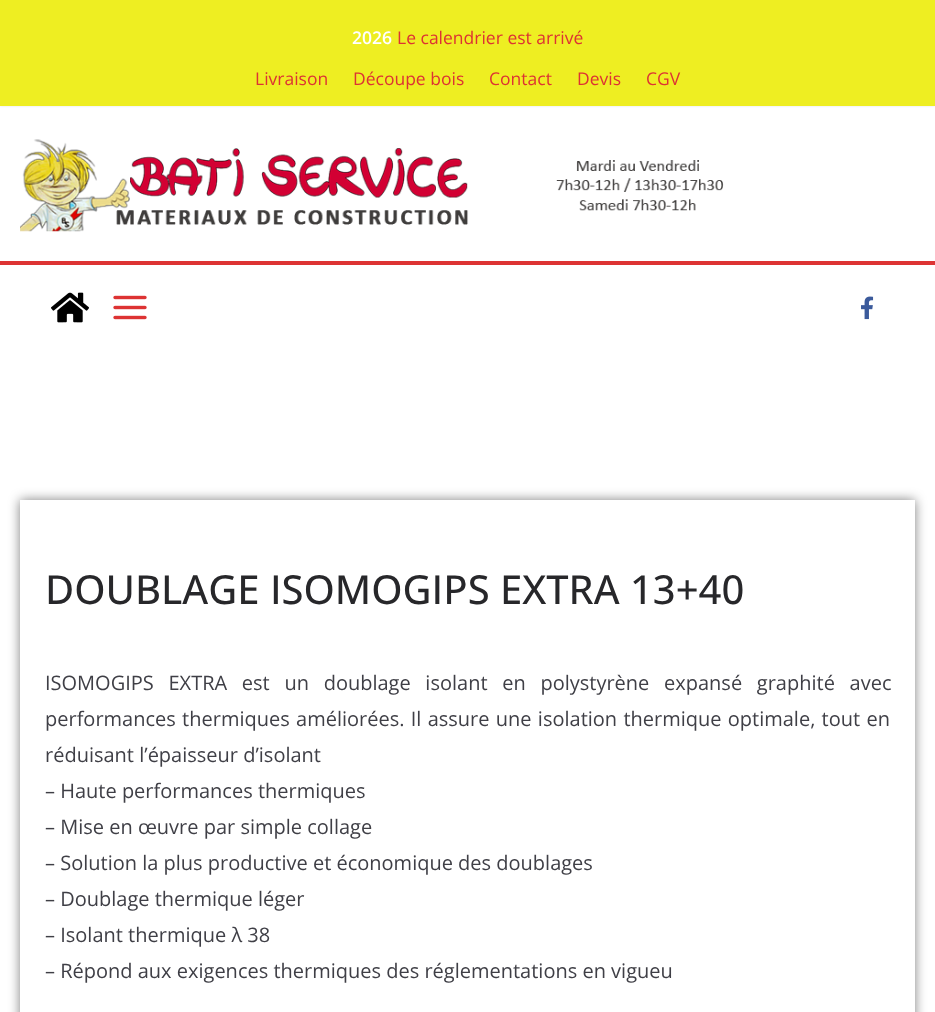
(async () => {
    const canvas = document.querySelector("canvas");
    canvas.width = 935;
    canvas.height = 1012;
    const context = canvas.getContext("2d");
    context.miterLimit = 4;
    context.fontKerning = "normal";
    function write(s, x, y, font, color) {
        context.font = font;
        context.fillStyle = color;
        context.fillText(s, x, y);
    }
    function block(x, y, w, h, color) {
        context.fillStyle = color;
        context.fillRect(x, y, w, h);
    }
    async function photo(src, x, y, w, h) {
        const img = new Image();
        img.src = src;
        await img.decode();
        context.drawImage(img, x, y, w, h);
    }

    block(0, 0, 935, 1012, "rgb(255, 255, 255)");
    context.fillStyle = "rgba(0, 0, 0, 0.1)";
    context.filter = "blur(1px)";
    context.beginPath();
    context.rect(0, 0, 935, 106);
    context.fill();
    context.filter = "none";
    block(0, 0, 935, 106, "rgb(238, 238, 34)");
    write("2026", 352, 44, "600 17.5px Open Sans", "rgb(255, 255, 255)");
    write("Le calendrier est arrivé", 397, 44, "17.5px Open Sans", "rgb(221, 51, 51)");
    write("Livraison", 255, 85, "17.5px Open Sans", "rgb(221, 51, 51)");
    write("Découpe bois", 353, 85, "17.5px Open Sans", "rgb(221, 51, 51)");
    write("Contact", 489, 85, "17.5px Open Sans", "rgb(221, 51, 51)");
    write("Devis", 577, 85, "17.5px Open Sans", "rgb(221, 51, 51)");
    write("CGV", 646, 85, "17.5px Open Sans", "rgb(221, 51, 51)");
    await photo("media/1.png", 20, 139, 704, 93);
    block(0, 261, 935, 4, "rgb(221, 51, 51)");
    await photo("media/2.png", 51, 292, 38, 31);
    await photo("media/3.png", 113, 295, 34, 25);
    await photo("media/4.png", 861, 296, 13, 24);
    context.save();
    context.beginPath();
    context.moveTo(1, 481);
    context.lineTo(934, 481);
    context.lineTo(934, 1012);
    context.lineTo(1, 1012);
    context.closePath();
    context.moveTo(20, 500);
    context.lineTo(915, 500);
    context.lineTo(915, 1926);
    context.lineTo(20, 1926);
    context.closePath();
    context.clip("evenodd");
    context.fillStyle = "rgba(0, 0, 0, 0.5)";
    context.filter = "blur(6px)";
    context.beginPath();
    context.rect(20, 500, 895, 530);
    context.fill();
    context.filter = "none";
    context.restore();
    write("DOUBLAGE ISOMOGIPS EXTRA 13+40", 45, 604, "500 40px Open Sans", "rgb(39, 39, 42)");
    context.wordSpacing = "9.5px";
    write("ISOMOGIPS EXTRA est un doublage isolant en polystyrène expansé graphité avec", 45, 690, "20px Open Sans", "rgb(63, 63, 70)");
    context.wordSpacing = "1.1px";
    write("performances thermiques améliorées. Il assure une isolation thermique optimale, tout en", 45, 726, "20px Open Sans", "rgb(63, 63, 70)");
    context.wordSpacing = "0px";
    write("réduisant l’épaisseur d’isolant", 45, 762, "20px Open Sans", "rgb(63, 63, 70)");
    write("– Haute performances thermiques", 45, 798, "20px Open Sans", "rgb(63, 63, 70)");
    write("– Mise en œuvre par simple collage", 45, 834, "20px Open Sans", "rgb(63, 63, 70)");
    write("– Solution la plus productive et économique des doublages", 45, 870, "20px Open Sans", "rgb(63, 63, 70)");
    write("– Doublage thermique léger", 45, 906, "20px Open Sans", "rgb(63, 63, 70)");
    write("– Isolant thermique λ 38", 45, 942, "20px Open Sans", "rgb(63, 63, 70)");
    write("– Répond aux exigences thermiques des réglementations en vigueu", 45, 978, "20px Open Sans", "rgb(63, 63, 70)");
})();
